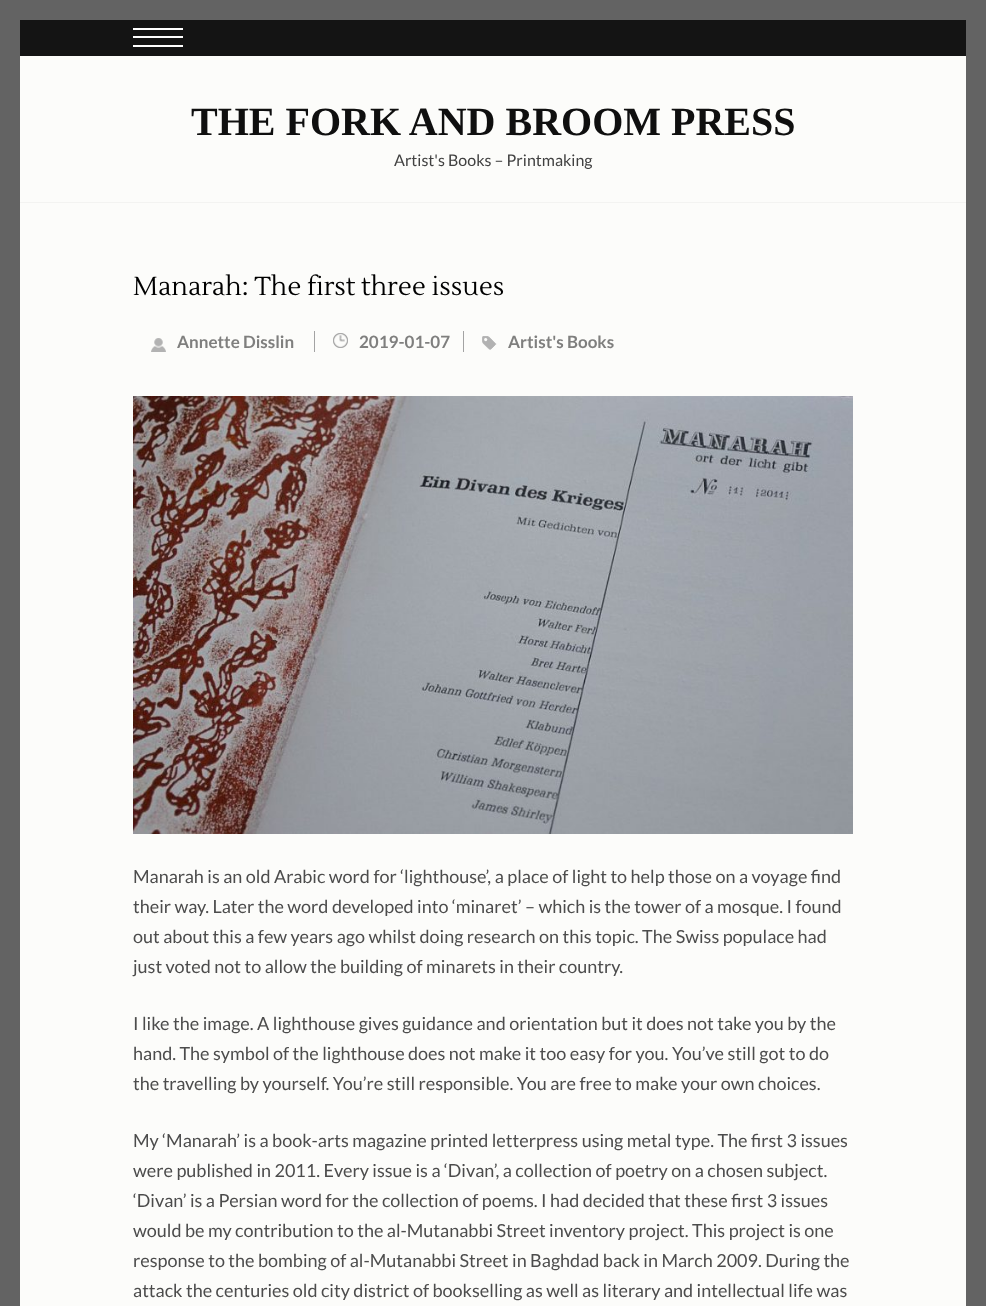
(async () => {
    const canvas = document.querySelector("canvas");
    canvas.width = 986;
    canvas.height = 1306;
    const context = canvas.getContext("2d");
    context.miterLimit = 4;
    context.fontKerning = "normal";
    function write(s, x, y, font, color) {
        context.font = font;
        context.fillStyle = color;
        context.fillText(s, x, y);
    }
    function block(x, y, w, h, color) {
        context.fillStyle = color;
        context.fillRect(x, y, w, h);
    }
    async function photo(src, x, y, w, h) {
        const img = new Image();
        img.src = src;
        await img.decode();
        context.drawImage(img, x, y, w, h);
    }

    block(0, 0, 986, 1306, "rgb(99, 99, 99)");
    block(20, 56, 946, 1250, "rgb(252, 252, 250)");
    block(20, 202, 946, 1, "rgb(243, 243, 241)");
    block(20, 20, 946, 36, "rgb(20, 20, 20)");
    block(133, 28, 50, 2, "rgb(255, 255, 255)");
    block(133, 36, 50, 2, "rgb(255, 255, 255)");
    block(133, 45, 50, 2, "rgb(255, 255, 255)");
    write("THE FORK AND BROOM PRESS", 191, 135, "bold 40px Liberation Serif", "rgb(15, 15, 15)");
    write("Artist's Books – Printmaking", 394, 166, "16px Lato", "rgb(65, 65, 65)");
    write("Manarah: The first three issues", 133, 295, "26px Lustria", "rgb(0, 0, 0)");
    await photo("media/1.png", 151, 338, 15, 14);
    write("Annette Disslin", 177, 348, "bold 17px Lato", "rgb(127, 127, 126)");
    await photo("media/2.png", 333, 333, 15, 15);
    block(314, 331, 1, 21, "rgb(163, 163, 163)");
    write("2019-01-07", 359, 348, "bold 17px Lato", "rgb(127, 127, 126)");
    await photo("media/3.png", 482, 336, 15, 14);
    block(463, 331, 1, 21, "rgb(163, 163, 163)");
    write("Artist's Books", 508, 348, "bold 17px Lato", "rgb(127, 127, 126)");
    await photo("media/4.png", 133, 396, 720, 438);
    write("Manarah is an old Arabic word for ‘lighthouse’, a place of light to help those on a voyage find", 133, 883, "18px Lato", "rgb(76, 76, 76)");
    write("their way. Later the word developed into ‘minaret’ – which is the tower of a mosque. I found", 133, 913, "18px Lato", "rgb(76, 76, 76)");
    write("out about this a few years ago whilst doing research on this topic. The Swiss populace had", 133, 943, "18px Lato", "rgb(76, 76, 76)");
    write("just voted not to allow the building of minarets in their country.", 133, 973, "18px Lato", "rgb(76, 76, 76)");
    write("I like the image. A lighthouse gives guidance and orientation but it does not take you by the", 133, 1030, "18px Lato", "rgb(76, 76, 76)");
    write("hand. The symbol of the lighthouse does not make it too easy for you. You’ve still got to do", 133, 1060, "18px Lato", "rgb(76, 76, 76)");
    write("the travelling by yourself. You’re still responsible. You are free to make your own choices.", 133, 1090, "18px Lato", "rgb(76, 76, 76)");
    write("My ‘Manarah’ is a book-arts magazine printed letterpress using metal type. The first 3 issues", 133, 1147, "18px Lato", "rgb(76, 76, 76)");
    write("were published in 2011. Every issue is a ‘Divan’, a collection of poetry on a chosen subject.", 133, 1177, "18px Lato", "rgb(76, 76, 76)");
    write("‘Divan’ is a Persian word for the collection of poems. I had decided that these first 3 issues", 133, 1207, "18px Lato", "rgb(76, 76, 76)");
    write("would be my contribution to the al-Mutanabbi Street inventory project. This project is one", 133, 1237, "18px Lato", "rgb(76, 76, 76)");
    write("response to the bombing of al-Mutanabbi Street in Baghdad back in March 2009. During the", 133, 1267, "18px Lato", "rgb(76, 76, 76)");
    write("attack the centuries old city district of bookselling as well as literary and intellectual life was", 133, 1297, "18px Lato", "rgb(76, 76, 76)");
})();
